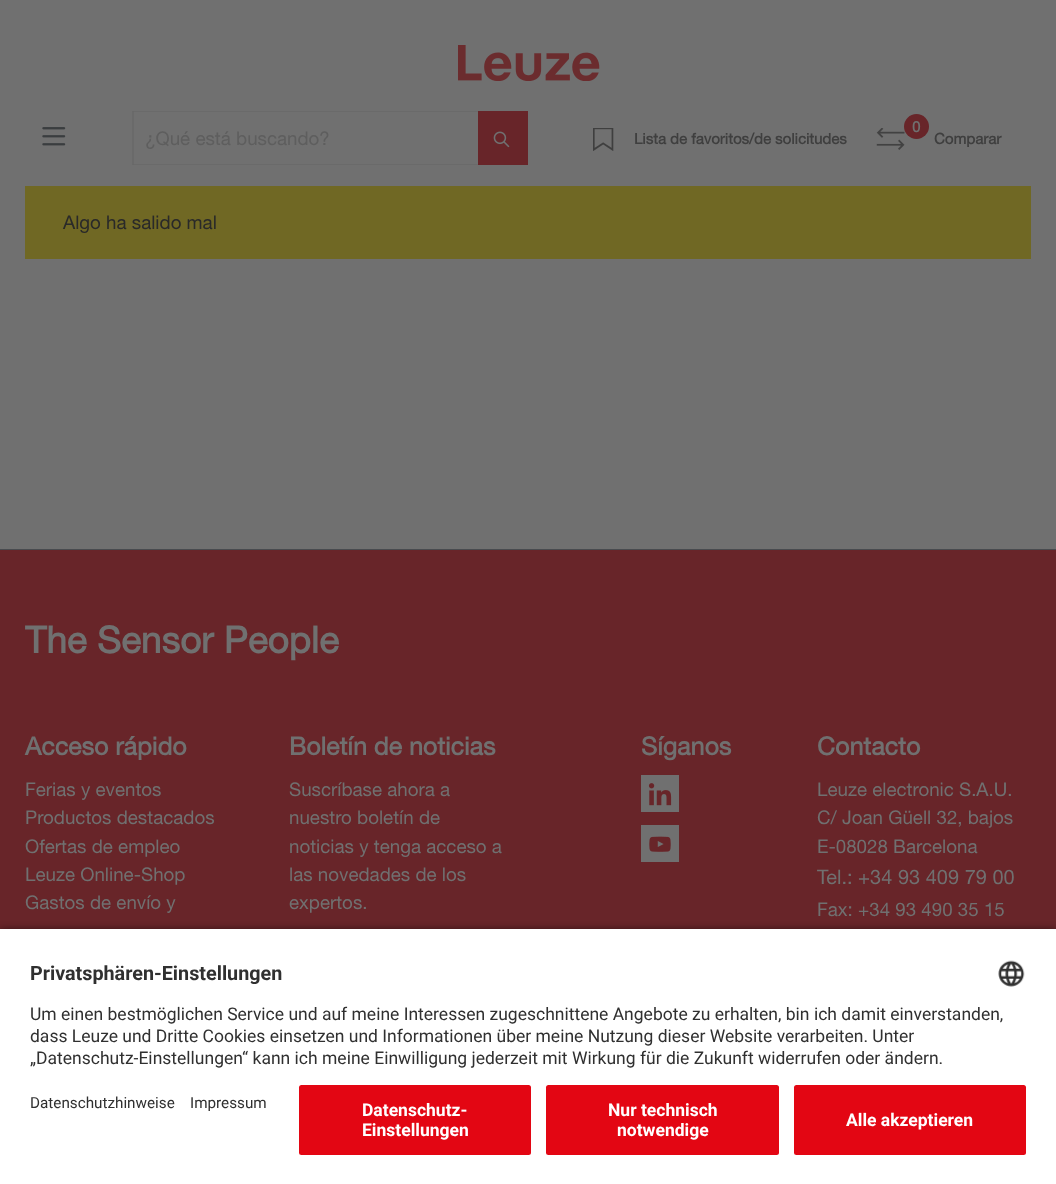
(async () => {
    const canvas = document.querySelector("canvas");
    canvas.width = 1056;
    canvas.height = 1184;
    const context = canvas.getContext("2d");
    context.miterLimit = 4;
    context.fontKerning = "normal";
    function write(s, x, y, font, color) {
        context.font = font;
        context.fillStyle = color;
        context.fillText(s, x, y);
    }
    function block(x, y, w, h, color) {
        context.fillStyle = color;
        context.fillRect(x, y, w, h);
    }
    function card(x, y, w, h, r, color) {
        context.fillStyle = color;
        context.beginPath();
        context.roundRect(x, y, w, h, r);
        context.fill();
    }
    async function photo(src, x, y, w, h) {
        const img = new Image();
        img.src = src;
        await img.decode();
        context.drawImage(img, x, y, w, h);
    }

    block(0, 0, 1056, 1184, "rgb(112, 112, 112)");
    await photo("media/1.png", 458, 45, 142, 36);
    await photo("media/2.png", 42, 127, 24, 19);
    context.fillStyle = "rgb(106, 106, 106)";
    context.beginPath();
    context.moveTo(132, 111);
    context.lineTo(479, 111);
    context.lineTo(479, 112);
    context.lineTo(134, 112);
    context.closePath();
    context.fill();
    context.beginPath();
    context.moveTo(479, 165);
    context.lineTo(132, 165);
    context.lineTo(134, 164);
    context.lineTo(479, 164);
    context.closePath();
    context.fill();
    context.fillStyle = "rgba(36, 36, 36, 0.08)";
    context.beginPath();
    context.moveTo(132, 165);
    context.lineTo(132, 111);
    context.lineTo(134, 112);
    context.lineTo(134, 164);
    context.closePath();
    context.fill();
    write("¿Qué está buscando?", 145, 145, "18.75px 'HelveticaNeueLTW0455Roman'", "rgb(94, 94, 94)");
    block(478, 111, 50, 54, "rgb(104, 37, 41)");
    await photo("media/3.png", 493, 131, 17, 17);
    await photo("media/4.png", 593, 128, 21, 23);
    write("Lista de favoritos/de solicitudes", 634, 144, "bold 15px 'HelveticaNeueLTW0455Roman'", "rgb(63, 63, 63)");
    await photo("media/5.png", 876, 128, 29, 22);
    context.fillStyle = "rgb(104, 37, 41)";
    context.beginPath();
    context.arc(916.5, 126.5, 12.5, 0, Math.PI * 2);
    context.fill();
    write("0", 912, 132, "bold 15px 'HelveticaNeueLTW0455Roman'", "rgb(112, 112, 112)");
    write("Comparar", 934, 144, "bold 15px 'HelveticaNeueLTW0455Roman'", "rgb(63, 63, 63)");
    block(25, 186, 1006, 73, "rgb(112, 104, 36)");
    write("Algo ha salido mal", 63, 229, "18.75px 'HelveticaNeueLTW0455Roman'", "rgb(41, 41, 41)");
    block(0, 550, 1056, 379, "rgb(104, 37, 41)");
    block(0, 549, 1056, 1, "rgb(72, 75, 79)");
    write("The Sensor People", 25, 653, "bold 37px 'HelveticaNeueLTW0455Roman'", "rgb(112, 112, 112)");
    write("Acceso rápido", 25, 755, "bold 25px 'HelveticaNeueLTW0455Roman'", "rgb(112, 112, 112)");
    write("Ferias y eventos", 25, 796, "18.75px 'HelveticaNeueLTW0455Roman'", "rgb(112, 112, 112)");
    write("Productos destacados", 25, 824, "18.75px 'HelveticaNeueLTW0455Roman'", "rgb(112, 112, 112)");
    write("Ofertas de empleo", 25, 853, "18.75px 'HelveticaNeueLTW0455Roman'", "rgb(112, 112, 112)");
    write("Leuze Online-Shop", 25, 881, "18.75px 'HelveticaNeueLTW0455Roman'", "rgb(112, 112, 112)");
    write("Gastos de envío y", 25, 909, "18.75px 'HelveticaNeueLTW0455Roman'", "rgb(112, 112, 112)");
    write("Boletín de noticias", 289, 755, "bold 25px 'HelveticaNeueLTW0455Roman'", "rgb(112, 112, 112)");
    write("Suscríbase ahora a", 289, 796, "18.75px 'HelveticaNeueLTW0455Roman'", "rgb(112, 112, 112)");
    write("nuestro boletín de", 289, 824, "18.75px 'HelveticaNeueLTW0455Roman'", "rgb(112, 112, 112)");
    write("noticias y tenga acceso a", 289, 853, "18.75px 'HelveticaNeueLTW0455Roman'", "rgb(112, 112, 112)");
    write("las novedades de los", 289, 881, "18.75px 'HelveticaNeueLTW0455Roman'", "rgb(112, 112, 112)");
    write("expertos.", 289, 909, "18.75px 'HelveticaNeueLTW0455Roman'", "rgb(112, 112, 112)");
    write("Síganos", 641, 755, "bold 25px 'HelveticaNeueLTW0455Roman'", "rgb(112, 112, 112)");
    await photo("media/6.png", 641, 775, 38, 37);
    await photo("media/7.png", 641, 825, 38, 37);
    write("Contacto", 817, 755, "bold 25px 'HelveticaNeueLTW0455Roman'", "rgb(112, 112, 112)");
    write("Leuze electronic S.A.U.", 817, 796, "18.75px 'HelveticaNeueLTW0455Roman'", "rgb(112, 112, 112)");
    write("C/ Joan Güell 32, bajos", 817, 824, "18.75px 'HelveticaNeueLTW0455Roman'", "rgb(112, 112, 112)");
    write("E-08028 Barcelona", 817, 853, "18.75px 'HelveticaNeueLTW0455Roman'", "rgb(112, 112, 112)");
    write("Tel.: +34 93 409 79 00", 817, 884, "20px 'HelveticaNeueLTW0455Roman'", "rgb(112, 112, 112)");
    write("Fax: +34 93 490 35 15", 817, 916, "18.75px 'HelveticaNeueLTW0455Roman'", "rgb(112, 112, 112)");
    context.fillStyle = "rgba(0, 0, 0, 0.8)";
    context.filter = "blur(4.5px)";
    context.beginPath();
    context.rect(0, 931, 1056, 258);
    context.fill();
    context.filter = "none";
    block(0, 929, 1056, 255, "rgb(255, 255, 255)");
    write("Privatsphären-Einstellungen", 30, 980, "bold 19.75px Roboto", "rgb(48, 48, 48)");
    await photo("media/8.png", 998, 960, 27, 27);
    write("Um einen bestmöglichen Service und auf meine Interessen zugeschnittene Angebote zu erhalten, bin ich damit einverstanden,", 30, 1020, "17.5px Roboto", "rgb(48, 48, 48)");
    write("dass Leuze und Dritte Cookies einsetzen und Informationen über meine Nutzung dieser Website verarbeiten. Unter", 30, 1042, "17.5px Roboto", "rgb(48, 48, 48)");
    write("„Datenschutz-Einstellungen“ kann ich meine Einwilligung jederzeit mit Wirkung für die Zukunft widerrufen oder ändern.", 30, 1064, "17.5px Roboto", "rgb(48, 48, 48)");
    write("Datenschutzhinweise", 30, 1108, "15.25px Roboto", "rgb(48, 48, 48)");
    write("Impressum", 190, 1108, "15.25px Roboto", "rgb(48, 48, 48)");
    card(299, 1085, 232, 70, 2.5, "rgb(227, 6, 19)");
    write("Datenschutz-", 362, 1116, "bold 17.5px Roboto", "rgb(255, 255, 255)");
    write("Einstellungen", 362, 1136, "bold 17.5px Roboto", "rgb(255, 255, 255)");
    card(546, 1085, 233, 70, 2.5, "rgb(227, 6, 19)");
    write("Nur technisch", 608, 1116, "bold 17.5px Roboto", "rgb(255, 255, 255)");
    write("notwendige", 617, 1136, "bold 17.5px Roboto", "rgb(255, 255, 255)");
    card(794, 1085, 232, 70, 2.5, "rgb(227, 6, 19)");
    write("Alle akzeptieren", 846, 1126, "bold 17.5px Roboto", "rgb(255, 255, 255)");
})();
